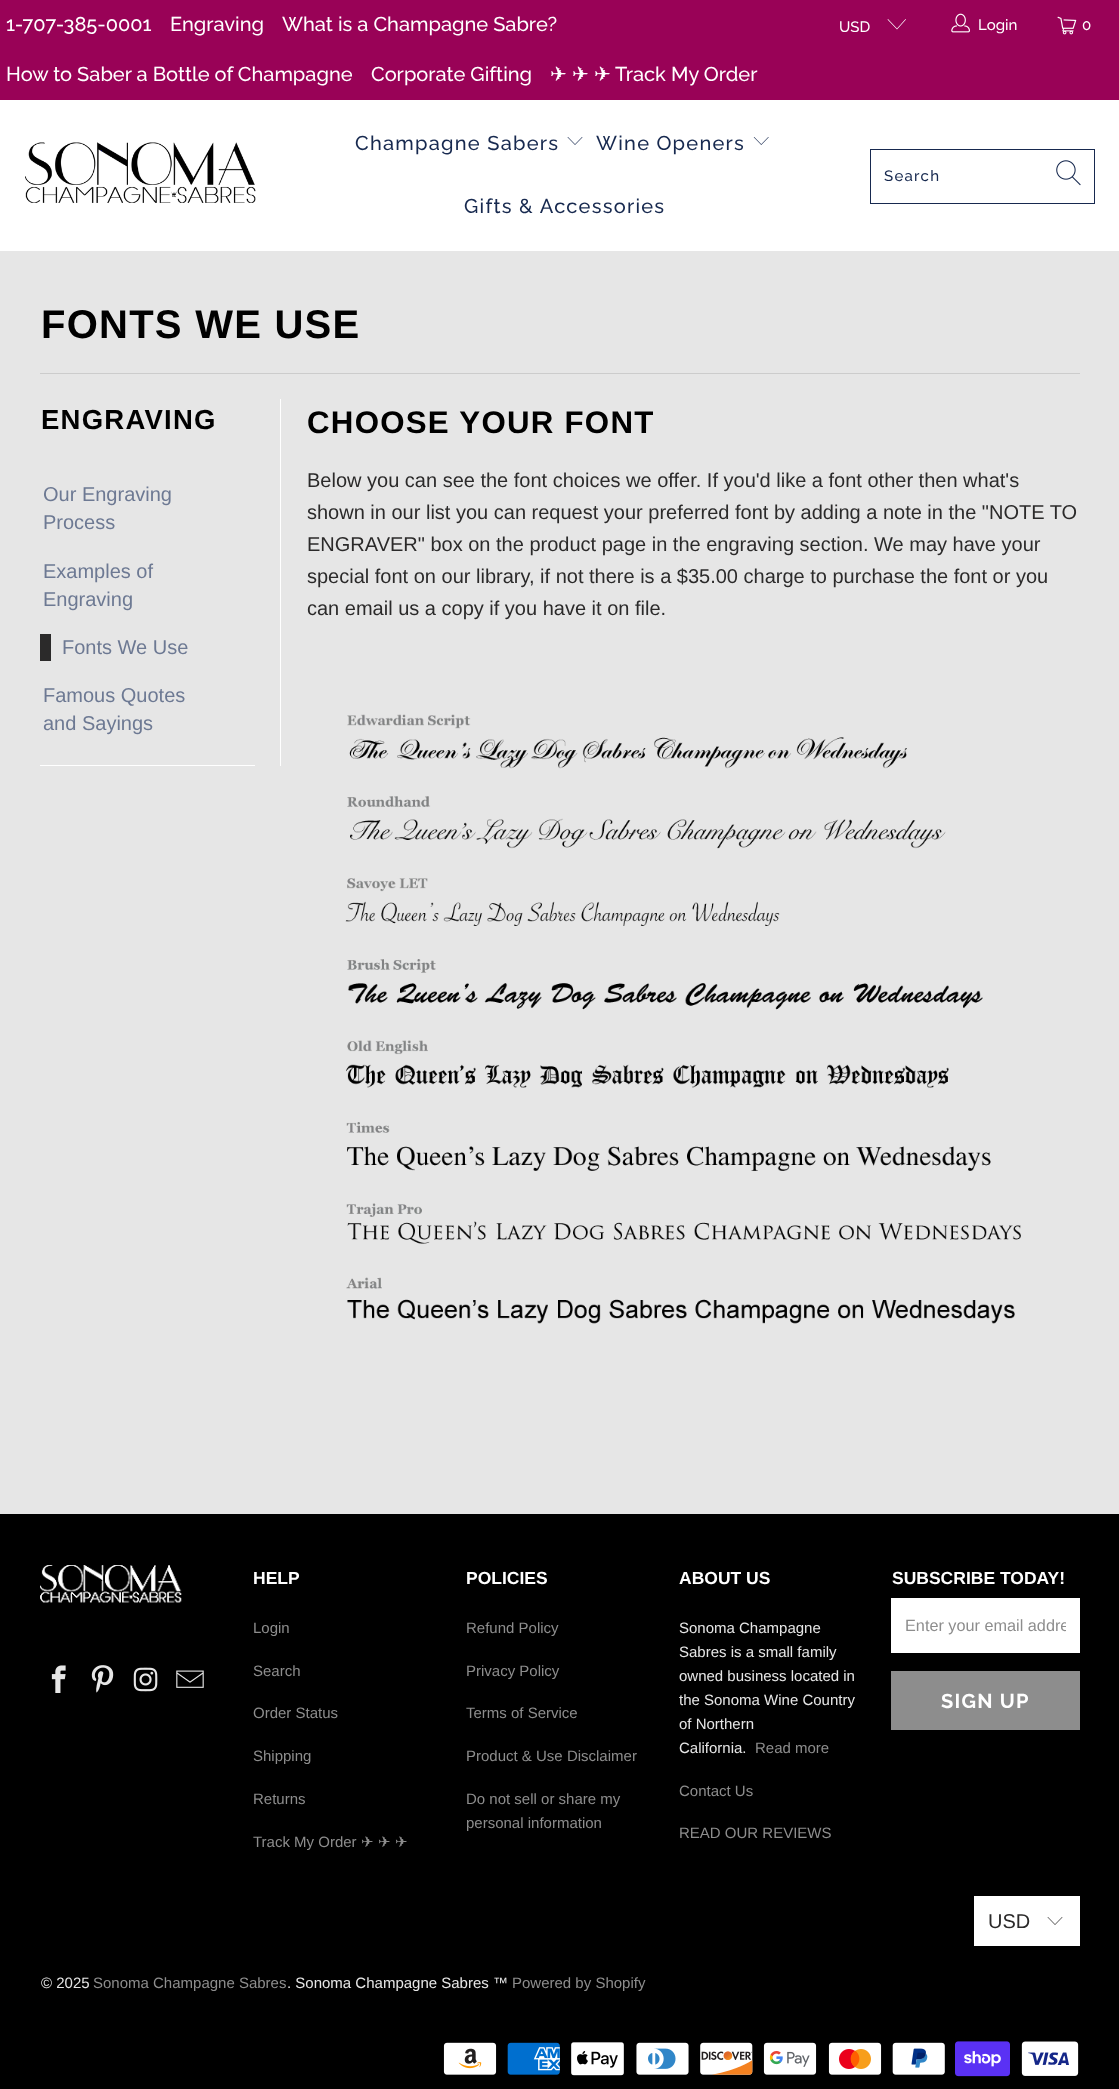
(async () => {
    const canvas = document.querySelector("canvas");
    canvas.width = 1119;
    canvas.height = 2089;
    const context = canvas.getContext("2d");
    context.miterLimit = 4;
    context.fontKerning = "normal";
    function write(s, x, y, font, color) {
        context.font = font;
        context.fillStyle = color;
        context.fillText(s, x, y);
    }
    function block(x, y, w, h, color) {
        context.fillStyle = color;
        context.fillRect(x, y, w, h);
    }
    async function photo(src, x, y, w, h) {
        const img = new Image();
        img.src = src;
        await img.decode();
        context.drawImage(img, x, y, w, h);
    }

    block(0, 0, 1119, 2089, "rgb(230, 230, 230)");
    block(0, 0, 1119, 100, "rgb(153, 2, 87)");
    write("1-707-385-0001", 6, 31, "500 20px Raleway", "rgb(255, 255, 255)");
    write("Engraving", 170, 31, "500 20px Raleway", "rgb(255, 255, 255)");
    write("What is a Champagne Sabre?", 282, 31, "500 20px Raleway", "rgb(255, 255, 255)");
    write("How to Saber a Bottle of Champagne", 6, 81, "500 20px Raleway", "rgb(255, 255, 255)");
    write("Corporate Gifting", 371, 81, "500 20px Raleway", "rgb(255, 255, 255)");
    write("✈", 550, 81, "20px DejaVu Sans", "rgb(255, 255, 255)");
    write("✈", 572, 81, "20px DejaVu Sans", "rgb(255, 255, 255)");
    write("✈", 594, 81, "20px DejaVu Sans", "rgb(255, 255, 255)");
    write("Track My Order", 615, 81, "500 20px Raleway", "rgb(255, 255, 255)");
    write("USD", 839, 32, "500 15px Raleway", "rgb(255, 255, 255)");
    context.beginPath();
    context.moveTo(897, 29.5);
    context.lineTo(887.5, 19.5);
    context.lineTo(888, 19);
    context.lineTo(897, 28.5);
    context.lineTo(905.5, 19);
    context.lineTo(906, 19.5);
    context.closePath();
    context.fill();
    await photo("media/1.png", 951, 13, 19, 20);
    write("Login", 978, 30, "500 15px Raleway", "rgb(255, 255, 255)");
    await photo("media/2.png", 1057, 16, 20, 19);
    write("0", 1082, 30, "500 15px Raleway", "rgb(255, 255, 255)");
    block(0, 100, 1119, 151, "rgb(255, 255, 255)");
    await photo("media/3.png", 25, 142, 231, 61);
    context.letterSpacing = "1.25px";
    write("Champagne Sabers", 355, 150, "500 20px Raleway", "rgb(23, 41, 79)");
    await photo("media/4.png", 567, 137, 16, 8);
    write("Wine Openers", 596, 150, "500 20px Raleway", "rgb(23, 41, 79)");
    await photo("media/5.png", 753, 137, 16, 8);
    write("Gifts & Accessories", 464, 213, "500 20px Raleway", "rgb(23, 41, 79)");
    context.strokeStyle = "rgb(23, 41, 79)";
    context.strokeRect(870.5, 149.5, 224, 54);
    write("Search", 884, 181, "500 15px Raleway", "rgb(23, 41, 79)");
    await photo("media/6.png", 1056, 160, 25, 26);
    write("FONTS WE USE", 41, 338, "bold 40px Liberation Sans", "rgb(0, 0, 0)");
    block(40, 373, 1040, 1, "rgb(204, 204, 204)");
    block(280, 399, 1, 367, "rgb(255, 255, 255)");
    write("ENGRAVING", 41, 429, "bold 27.5px Liberation Sans", "rgb(0, 0, 0)");
    context.letterSpacing = "0px";
    write("Our Engraving", 43, 501, "20px Liberation Sans", "rgb(109, 121, 147)");
    write("Process", 43, 529, "20px Liberation Sans", "rgb(109, 121, 147)");
    write("Examples of", 43, 578, "20px Liberation Sans", "rgb(109, 121, 147)");
    write("Engraving", 43, 606, "20px Liberation Sans", "rgb(109, 121, 147)");
    block(40, 634, 11, 27, "rgb(43, 42, 42)");
    write("Fonts We Use", 62, 654, "20px Liberation Sans", "rgb(109, 121, 147)");
    write("Famous Quotes", 43, 702, "20px Liberation Sans", "rgb(109, 121, 147)");
    write("and Sayings", 43, 730, "20px Liberation Sans", "rgb(109, 121, 147)");
    block(40, 765, 215, 1, "rgb(255, 255, 255)");
    context.letterSpacing = "1.25px";
    write("CHOOSE YOUR FONT", 307, 433, "bold 31.25px Liberation Sans", "rgb(0, 0, 0)");
    context.letterSpacing = "0px";
    write("Below you can see the font choices we offer. If you'd like a font other then what's", 307, 487, "20px Liberation Sans", "rgb(43, 42, 42)");
    write("shown in our list you can request your preferred font by adding a note in the \"NOTE TO", 307, 519, "20px Liberation Sans", "rgb(43, 42, 42)");
    write("ENGRAVER\" box on the product page in the engraving section. We may have your", 307, 551, "20px Liberation Sans", "rgb(43, 42, 42)");
    write("special font on our library, if not there is a $35.00 charge to purchase the font or you", 307, 583, "20px Liberation Sans", "rgb(43, 42, 42)");
    write("can email us a copy if you have it on file.", 307, 615, "20px Liberation Sans", "rgb(43, 42, 42)");
    await photo("media/7.png", 345, 714, 676, 610);
    block(0, 1514, 1119, 575, "rgb(0, 0, 0)");
    await photo("media/8.png", 40, 1565, 142, 38);
    await photo("media/9.png", 51, 1665, 15, 28);
    await photo("media/10.png", 91, 1665, 23, 28);
    await photo("media/11.png", 133, 1667, 25, 25);
    await photo("media/12.png", 176, 1670, 28, 18);
    write("HELP", 253, 1584, "bold 17.5px Liberation Sans", "rgb(255, 255, 255)");
    write("Login", 253, 1633, "15px Liberation Sans", "rgb(141, 141, 141)");
    write("Search", 253, 1676, "15px Liberation Sans", "rgb(141, 141, 141)");
    write("Order Status", 253, 1718, "15px Liberation Sans", "rgb(141, 141, 141)");
    write("Shipping", 253, 1761, "15px Liberation Sans", "rgb(141, 141, 141)");
    write("Returns", 253, 1804, "15px Liberation Sans", "rgb(141, 141, 141)");
    write("Track My Order", 253, 1847, "15px Liberation Sans", "rgb(141, 141, 141)");
    write("✈", 361, 1847, "15px DejaVu Sans", "rgb(141, 141, 141)");
    write("✈", 378, 1847, "15px DejaVu Sans", "rgb(141, 141, 141)");
    write("✈", 395, 1847, "15px DejaVu Sans", "rgb(141, 141, 141)");
    write("POLICIES", 466, 1584, "bold 17.5px Liberation Sans", "rgb(255, 255, 255)");
    write("Refund Policy", 466, 1633, "15px Liberation Sans", "rgb(141, 141, 141)");
    write("Privacy Policy", 466, 1676, "15px Liberation Sans", "rgb(141, 141, 141)");
    write("Terms of Service", 466, 1718, "15px Liberation Sans", "rgb(141, 141, 141)");
    write("Product & Use Disclaimer", 466, 1761, "15px Liberation Sans", "rgb(141, 141, 141)");
    write("Do not sell or share my", 466, 1804, "15px Liberation Sans", "rgb(141, 141, 141)");
    write("personal information", 466, 1828, "15px Liberation Sans", "rgb(141, 141, 141)");
    write("ABOUT US", 679, 1584, "bold 17.5px Liberation Sans", "rgb(255, 255, 255)");
    write("Sonoma Champagne", 679, 1633, "15px Liberation Sans", "rgb(230, 230, 230)");
    write("Sabres is a small family", 679, 1657, "15px Liberation Sans", "rgb(230, 230, 230)");
    write("owned business located in", 679, 1681, "15px Liberation Sans", "rgb(230, 230, 230)");
    write("the Sonoma Wine Country", 679, 1705, "15px Liberation Sans", "rgb(230, 230, 230)");
    write("of Northern", 679, 1729, "15px Liberation Sans", "rgb(230, 230, 230)");
    write("California.", 679, 1753, "15px Liberation Sans", "rgb(230, 230, 230)");
    write("Read more", 755, 1753, "15px Liberation Sans", "rgb(141, 141, 141)");
    write("Contact Us", 679, 1796, "15px Liberation Sans", "rgb(141, 141, 141)");
    write("READ OUR REVIEWS", 679, 1838, "15px Liberation Sans", "rgb(141, 141, 141)");
    write("SUBSCRIBE TODAY!", 892, 1584, "bold 17.5px Liberation Sans", "rgb(255, 255, 255)");
    block(891, 1598, 189, 55, "rgb(255, 255, 255)");
    context.save();
    context.beginPath();
    context.rect(905, 1616, 161, 19);
    context.clip();
    write("Enter your email addre", 905, 1631, "16.25px Liberation Sans", "rgb(141, 141, 141)");
    context.restore();
    block(891, 1671, 189, 59, "rgb(141, 141, 141)");
    context.letterSpacing = "1.25px";
    write("SIGN UP", 941, 1708, "bold 20px Raleway", "rgb(255, 255, 255)");
    block(974, 1896, 106, 50, "rgb(255, 255, 255)");
    context.letterSpacing = "0px";
    write("USD", 988, 1928, "20px Liberation Sans", "rgb(43, 42, 42)");
    await photo("media/13.png", 1047, 1917, 16, 8);
    write("© 2025", 41, 1988, "15px Liberation Sans", "rgb(230, 230, 230)");
    write("Sonoma Champagne Sabres", 93, 1988, "15px Liberation Sans", "rgb(141, 141, 141)");
    write(". Sonoma Champagne Sabres ™", 287, 1988, "15px Liberation Sans", "rgb(230, 230, 230)");
    write("Powered by Shopify", 512, 1988, "15px Liberation Sans", "rgb(141, 141, 141)");
    await photo("media/14.png", 443, 2042, 54, 33);
    await photo("media/15.png", 507, 2042, 53, 33);
    await photo("media/16.png", 571, 2042, 53, 34);
    await photo("media/17.png", 636, 2042, 53, 33);
    await photo("media/18.png", 700, 2042, 53, 33);
    await photo("media/19.png", 763, 2042, 54, 33);
    await photo("media/20.png", 828, 2042, 54, 33);
    await photo("media/21.png", 892, 2042, 53, 33);
    await photo("media/22.png", 955, 2041, 55, 36);
    await photo("media/23.png", 1021, 2041, 58, 35);
})();
